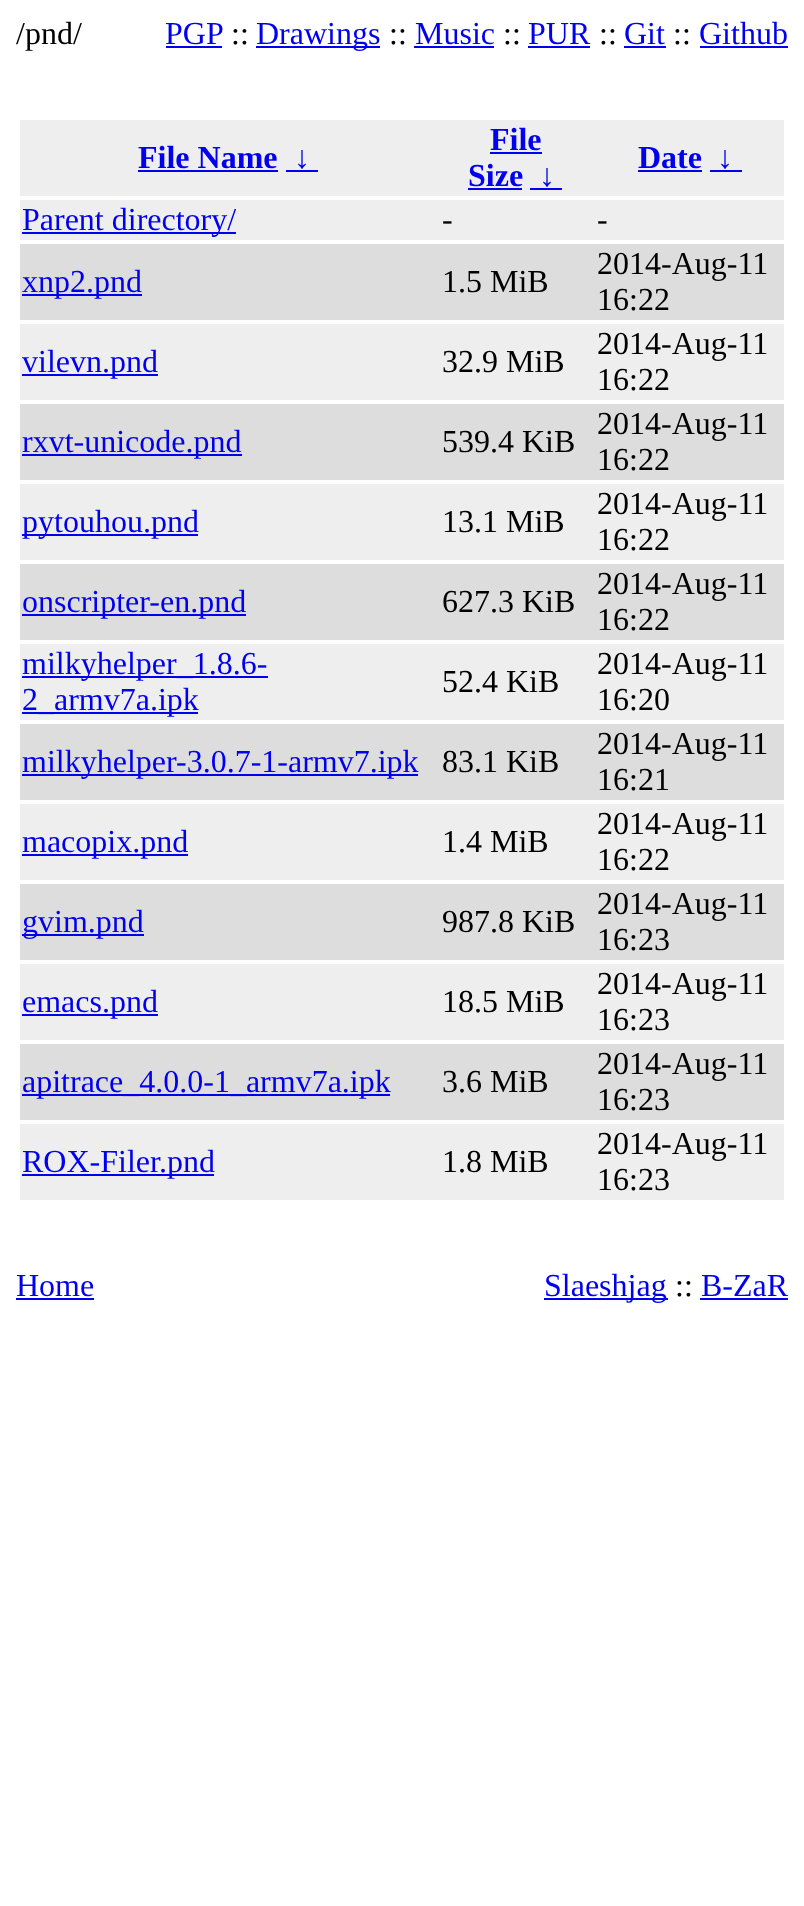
(async () => {
    const canvas = document.querySelector("canvas");
    canvas.width = 804;
    canvas.height = 1906;
    const context = canvas.getContext("2d");
    context.miterLimit = 4;
    context.fontKerning = "normal";
    function write(s, x, y, font, color) {
        context.font = font;
        context.fillStyle = color;
        context.fillText(s, x, y);
    }
    function block(x, y, w, h, color) {
        context.fillStyle = color;
        context.fillRect(x, y, w, h);
    }

    block(0, 0, 804, 1906, "rgb(255, 255, 255)");
    write("/pnd/", 16, 44, "32px Liberation Serif", "rgb(0, 0, 0)");
    block(20, 120, 764, 76, "rgb(238, 238, 238)");
    write("File Name", 138, 168, "bold 32px Liberation Serif", "rgb(0, 0, 238)");
    block(138, 170, 140, 2, "rgb(0, 0, 238)");
    write("↓", 294, 168, "bold 32px Liberation Serif", "rgb(0, 0, 238)");
    block(286, 170, 32, 2, "rgb(0, 0, 238)");
    write("File", 490, 150, "bold 32px Liberation Serif", "rgb(0, 0, 238)");
    block(490, 152, 52, 2, "rgb(0, 0, 238)");
    write("Size", 468, 186, "bold 32px Liberation Serif", "rgb(0, 0, 238)");
    block(468, 188, 54, 2, "rgb(0, 0, 238)");
    write("↓", 539, 186, "bold 32px Liberation Serif", "rgb(0, 0, 238)");
    block(530, 188, 32, 2, "rgb(0, 0, 238)");
    write("Date", 638, 168, "bold 32px Liberation Serif", "rgb(0, 0, 238)");
    block(638, 170, 64, 2, "rgb(0, 0, 238)");
    write("↓", 717, 168, "bold 32px Liberation Serif", "rgb(0, 0, 238)");
    block(710, 170, 32, 2, "rgb(0, 0, 238)");
    block(20, 200, 764, 40, "rgb(238, 238, 238)");
    block(22, 232, 214, 2, "rgb(0, 0, 238)");
    write("Parent directory/", 22, 230, "32px Liberation Serif", "rgb(0, 0, 238)");
    write("-", 442, 230, "32px Liberation Serif", "rgb(0, 0, 0)");
    write("-", 597, 230, "32px Liberation Serif", "rgb(0, 0, 0)");
    block(20, 244, 764, 76, "rgb(221, 221, 221)");
    block(22, 294, 120, 2, "rgb(0, 0, 238)");
    write("xnp2.pnd", 22, 292, "32px Liberation Serif", "rgb(0, 0, 238)");
    write("1.5 MiB", 442, 292, "32px Liberation Serif", "rgb(0, 0, 0)");
    write("2014-Aug-11", 597, 274, "32px Liberation Serif", "rgb(0, 0, 0)");
    write("16:22", 597, 310, "32px Liberation Serif", "rgb(0, 0, 0)");
    block(20, 324, 764, 76, "rgb(238, 238, 238)");
    block(22, 374, 136, 2, "rgb(0, 0, 238)");
    write("vilevn.pnd", 22, 372, "32px Liberation Serif", "rgb(0, 0, 238)");
    write("32.9 MiB", 442, 372, "32px Liberation Serif", "rgb(0, 0, 0)");
    write("2014-Aug-11", 597, 354, "32px Liberation Serif", "rgb(0, 0, 0)");
    write("16:22", 597, 390, "32px Liberation Serif", "rgb(0, 0, 0)");
    block(20, 404, 764, 76, "rgb(221, 221, 221)");
    block(22, 454, 220, 2, "rgb(0, 0, 238)");
    write("rxvt-unicode.pnd", 22, 452, "32px Liberation Serif", "rgb(0, 0, 238)");
    write("539.4 KiB", 442, 452, "32px Liberation Serif", "rgb(0, 0, 0)");
    write("2014-Aug-11", 597, 434, "32px Liberation Serif", "rgb(0, 0, 0)");
    write("16:22", 597, 470, "32px Liberation Serif", "rgb(0, 0, 0)");
    block(20, 484, 764, 76, "rgb(238, 238, 238)");
    block(22, 534, 176, 2, "rgb(0, 0, 238)");
    write("pytouhou.pnd", 22, 532, "32px Liberation Serif", "rgb(0, 0, 238)");
    write("13.1 MiB", 442, 532, "32px Liberation Serif", "rgb(0, 0, 0)");
    write("2014-Aug-11", 597, 514, "32px Liberation Serif", "rgb(0, 0, 0)");
    write("16:22", 597, 550, "32px Liberation Serif", "rgb(0, 0, 0)");
    block(20, 564, 764, 76, "rgb(221, 221, 221)");
    block(22, 614, 224, 2, "rgb(0, 0, 238)");
    write("onscripter-en.pnd", 22, 612, "32px Liberation Serif", "rgb(0, 0, 238)");
    write("627.3 KiB", 442, 612, "32px Liberation Serif", "rgb(0, 0, 0)");
    write("2014-Aug-11", 597, 594, "32px Liberation Serif", "rgb(0, 0, 0)");
    write("16:22", 597, 630, "32px Liberation Serif", "rgb(0, 0, 0)");
    block(20, 644, 764, 76, "rgb(238, 238, 238)");
    block(22, 676, 246, 2, "rgb(0, 0, 238)");
    write("milkyhelper_1.8.6-", 22, 674, "32px Liberation Serif", "rgb(0, 0, 238)");
    block(22, 712, 176, 2, "rgb(0, 0, 238)");
    write("2_armv7a.ipk", 22, 710, "32px Liberation Serif", "rgb(0, 0, 238)");
    write("52.4 KiB", 442, 692, "32px Liberation Serif", "rgb(0, 0, 0)");
    write("2014-Aug-11", 597, 674, "32px Liberation Serif", "rgb(0, 0, 0)");
    write("16:20", 597, 710, "32px Liberation Serif", "rgb(0, 0, 0)");
    block(20, 724, 764, 76, "rgb(221, 221, 221)");
    block(22, 774, 396, 2, "rgb(0, 0, 238)");
    write("milkyhelper-3.0.7-1-armv7.ipk", 22, 772, "32px Liberation Serif", "rgb(0, 0, 238)");
    write("83.1 KiB", 442, 772, "32px Liberation Serif", "rgb(0, 0, 0)");
    write("2014-Aug-11", 597, 754, "32px Liberation Serif", "rgb(0, 0, 0)");
    write("16:21", 597, 790, "32px Liberation Serif", "rgb(0, 0, 0)");
    block(20, 804, 764, 76, "rgb(238, 238, 238)");
    block(22, 854, 166, 2, "rgb(0, 0, 238)");
    write("macopix.pnd", 22, 852, "32px Liberation Serif", "rgb(0, 0, 238)");
    write("1.4 MiB", 442, 852, "32px Liberation Serif", "rgb(0, 0, 0)");
    write("2014-Aug-11", 597, 834, "32px Liberation Serif", "rgb(0, 0, 0)");
    write("16:22", 597, 870, "32px Liberation Serif", "rgb(0, 0, 0)");
    block(20, 884, 764, 76, "rgb(221, 221, 221)");
    block(22, 934, 122, 2, "rgb(0, 0, 238)");
    write("gvim.pnd", 22, 932, "32px Liberation Serif", "rgb(0, 0, 238)");
    write("987.8 KiB", 442, 932, "32px Liberation Serif", "rgb(0, 0, 0)");
    write("2014-Aug-11", 597, 914, "32px Liberation Serif", "rgb(0, 0, 0)");
    write("16:23", 597, 950, "32px Liberation Serif", "rgb(0, 0, 0)");
    block(20, 964, 764, 76, "rgb(238, 238, 238)");
    block(22, 1014, 136, 2, "rgb(0, 0, 238)");
    write("emacs.pnd", 22, 1012, "32px Liberation Serif", "rgb(0, 0, 238)");
    write("18.5 MiB", 442, 1012, "32px Liberation Serif", "rgb(0, 0, 0)");
    write("2014-Aug-11", 597, 994, "32px Liberation Serif", "rgb(0, 0, 0)");
    write("16:23", 597, 1030, "32px Liberation Serif", "rgb(0, 0, 0)");
    block(20, 1044, 764, 76, "rgb(221, 221, 221)");
    block(22, 1094, 368, 2, "rgb(0, 0, 238)");
    write("apitrace_4.0.0-1_armv7a.ipk", 22, 1092, "32px Liberation Serif", "rgb(0, 0, 238)");
    write("3.6 MiB", 442, 1092, "32px Liberation Serif", "rgb(0, 0, 0)");
    write("2014-Aug-11", 597, 1074, "32px Liberation Serif", "rgb(0, 0, 0)");
    write("16:23", 597, 1110, "32px Liberation Serif", "rgb(0, 0, 0)");
    block(20, 1124, 764, 76, "rgb(238, 238, 238)");
    block(22, 1174, 192, 2, "rgb(0, 0, 238)");
    write("ROX-Filer.pnd", 22, 1172, "32px Liberation Serif", "rgb(0, 0, 238)");
    write("1.8 MiB", 442, 1172, "32px Liberation Serif", "rgb(0, 0, 0)");
    write("2014-Aug-11", 597, 1154, "32px Liberation Serif", "rgb(0, 0, 0)");
    write("16:23", 597, 1190, "32px Liberation Serif", "rgb(0, 0, 0)");
    write("PGP", 165, 44, "32px Liberation Serif", "rgb(0, 0, 238)");
    block(166, 46, 56, 2, "rgb(0, 0, 238)");
    write("::", 231, 44, "32px Liberation Serif", "rgb(0, 0, 0)");
    block(256, 46, 124, 2, "rgb(0, 0, 238)");
    write("Drawings", 256, 44, "32px Liberation Serif", "rgb(0, 0, 238)");
    write("::", 389, 44, "32px Liberation Serif", "rgb(0, 0, 0)");
    write("Music", 415, 44, "32px Liberation Serif", "rgb(0, 0, 238)");
    block(414, 46, 80, 2, "rgb(0, 0, 238)");
    write("::", 503, 44, "32px Liberation Serif", "rgb(0, 0, 0)");
    write("PUR", 528, 44, "32px Liberation Serif", "rgb(0, 0, 238)");
    block(528, 46, 62, 2, "rgb(0, 0, 238)");
    write("::", 599, 44, "32px Liberation Serif", "rgb(0, 0, 0)");
    write("Git", 624, 44, "32px Liberation Serif", "rgb(0, 0, 238)");
    block(624, 46, 42, 2, "rgb(0, 0, 238)");
    write("::", 673, 44, "32px Liberation Serif", "rgb(0, 0, 0)");
    write("Github", 699, 44, "32px Liberation Serif", "rgb(0, 0, 238)");
    block(700, 46, 88, 2, "rgb(0, 0, 238)");
    write("Home", 16, 1296, "32px Liberation Serif", "rgb(0, 0, 238)");
    block(16, 1298, 78, 2, "rgb(0, 0, 238)");
    block(544, 1298, 124, 2, "rgb(0, 0, 238)");
    write("Slaeshjag", 544, 1296, "32px Liberation Serif", "rgb(0, 0, 238)");
    write("::", 675, 1296, "32px Liberation Serif", "rgb(0, 0, 0)");
    write("B-ZaR", 701, 1296, "32px Liberation Serif", "rgb(0, 0, 238)");
    block(700, 1298, 88, 2, "rgb(0, 0, 238)");
})();
